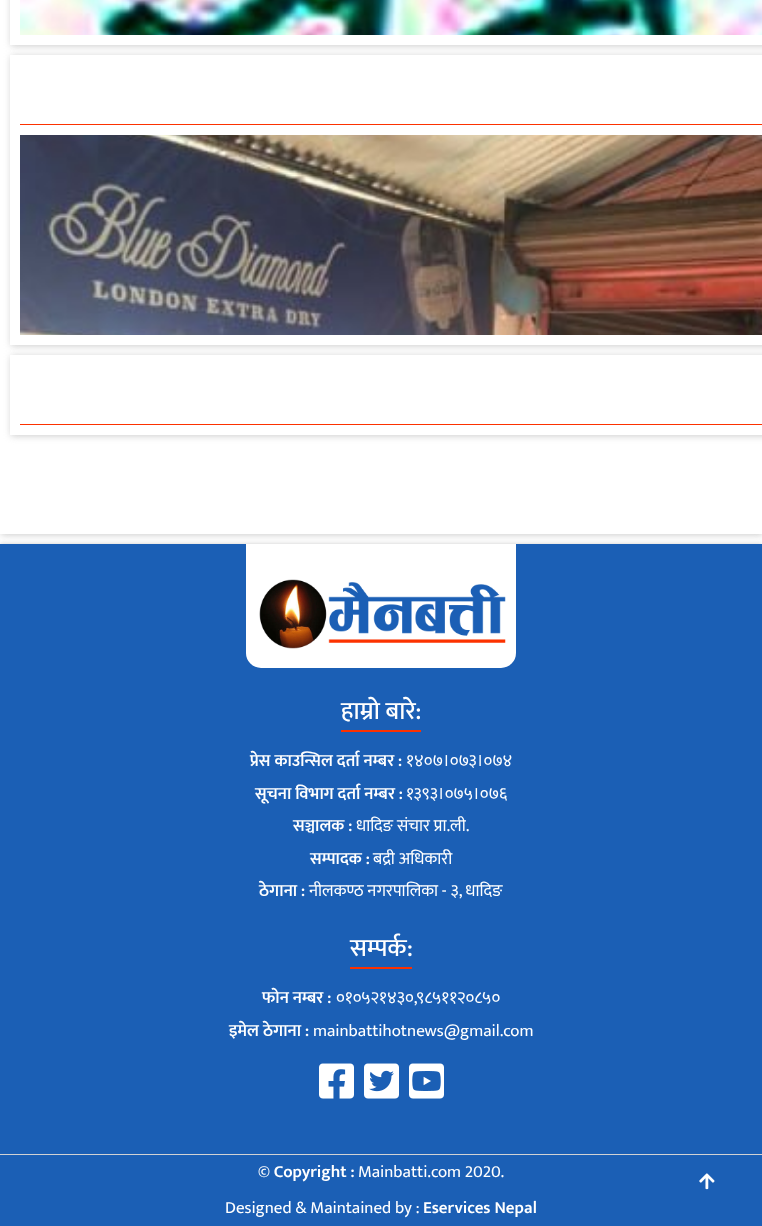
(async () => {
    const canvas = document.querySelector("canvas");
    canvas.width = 762;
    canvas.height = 1226;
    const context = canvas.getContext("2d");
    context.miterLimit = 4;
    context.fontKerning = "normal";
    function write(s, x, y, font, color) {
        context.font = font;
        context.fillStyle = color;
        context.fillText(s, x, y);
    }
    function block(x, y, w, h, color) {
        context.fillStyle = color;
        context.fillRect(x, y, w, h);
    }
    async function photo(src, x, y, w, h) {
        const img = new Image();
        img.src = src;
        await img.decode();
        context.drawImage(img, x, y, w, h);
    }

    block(0, 0, 762, 1226, "rgb(255, 255, 255)");
    context.fillStyle = "rgb(204, 204, 204)";
    context.filter = "blur(2.5px)";
    context.beginPath();
    context.rect(0, 544, 762, 682);
    context.fill();
    context.filter = "none";
    block(0, 544, 762, 682, "rgb(27, 95, 181)");
    context.fillStyle = "rgb(255, 255, 255)";
    context.beginPath();
    context.roundRect(246, 544, 270, 124, [0, 0, 15, 15]);
    context.fill();
    context.save();
    context.beginPath();
    context.rect(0, 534, 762, 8);
    context.clip();
    context.fillStyle = "rgb(204, 204, 204)";
    context.filter = "blur(3.5px)";
    context.beginPath();
    context.rect(1, -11, 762, 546);
    context.fill();
    context.filter = "none";
    context.restore();
    context.save();
    context.beginPath();
    context.moveTo(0, 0);
    context.lineTo(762, 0);
    context.lineTo(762, 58);
    context.lineTo(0, 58);
    context.closePath();
    context.moveTo(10, -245);
    context.lineTo(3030, -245);
    context.lineTo(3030, 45);
    context.lineTo(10, 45);
    context.closePath();
    context.clip("evenodd");
    context.fillStyle = "rgb(204, 204, 204)";
    context.filter = "blur(3.5px)";
    context.beginPath();
    context.rect(11, -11, 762, 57);
    context.fill();
    context.filter = "none";
    context.restore();
    await photo("media/1.png", 20, 0, 742, 35);
    context.save();
    context.beginPath();
    context.moveTo(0, 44);
    context.lineTo(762, 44);
    context.lineTo(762, 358);
    context.lineTo(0, 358);
    context.closePath();
    context.moveTo(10, 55);
    context.lineTo(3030, 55);
    context.lineTo(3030, 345);
    context.lineTo(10, 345);
    context.closePath();
    context.clip("evenodd");
    context.fillStyle = "rgb(204, 204, 204)";
    context.filter = "blur(3.5px)";
    context.beginPath();
    context.rect(11, 56, 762, 290);
    context.fill();
    context.filter = "none";
    context.restore();
    block(20, 124, 742, 1, "rgb(252, 49, 0)");
    await photo("media/2.png", 20, 135, 742, 200);
    context.save();
    context.beginPath();
    context.moveTo(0, 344);
    context.lineTo(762, 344);
    context.lineTo(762, 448);
    context.lineTo(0, 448);
    context.closePath();
    context.moveTo(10, 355);
    context.lineTo(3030, 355);
    context.lineTo(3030, 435);
    context.lineTo(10, 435);
    context.closePath();
    context.clip("evenodd");
    context.fillStyle = "rgb(204, 204, 204)";
    context.filter = "blur(3.5px)";
    context.beginPath();
    context.rect(11, 356, 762, 80);
    context.fill();
    context.filter = "none";
    context.restore();
    block(20, 424, 742, 1, "rgb(252, 49, 0)");
    await photo("media/3.png", 259, 579, 247, 70);
    write("हाम्रो बारे:", 341, 719, "500 25px Mukta", "rgb(255, 255, 255)");
    block(341, 730, 80, 2, "rgb(252, 49, 0)");
    write("प्रेस काउन्सिल दर्ता नम्बर :", 250, 766, "600 17px Mukta", "rgb(255, 255, 255)");
    write("१४०७।०७३।०७४", 406, 766, "17px Mukta", "rgb(255, 255, 255)");
    write("सूचना विभाग दर्ता नम्बर :", 255, 799, "600 17px Mukta", "rgb(255, 255, 255)");
    write("१३९३।०७५।०७६", 406, 799, "17px Mukta", "rgb(255, 255, 255)");
    write("सञ्चालक :", 293, 831, "600 17px Mukta", "rgb(255, 255, 255)");
    write("धादिङ संचार प्रा.ली.", 356, 831, "17px Mukta", "rgb(255, 255, 255)");
    write("सम्पादक :", 310, 864, "600 17px Mukta", "rgb(255, 255, 255)");
    write("बद्री अधिकारी", 373, 864, "17px Mukta", "rgb(255, 255, 255)");
    write("ठेगाना :", 259, 896, "600 17px Mukta", "rgb(255, 255, 255)");
    write("नीलकण्ठ नगरपालिका - ३, धादिङ", 309, 896, "17px Mukta", "rgb(255, 255, 255)");
    write("सम्पर्क:", 350, 956, "500 25px Mukta", "rgb(255, 255, 255)");
    block(350, 967, 62, 2, "rgb(252, 49, 0)");
    write("फोन नम्बर :", 262, 1003, "600 17px Mukta", "rgb(255, 255, 255)");
    write("०१०५२१४३०,९८५११२०८५०", 336, 1003, "17px Mukta", "rgb(255, 255, 255)");
    write("इमेल ठेगाना :", 229, 1036, "600 17px Mukta", "rgb(255, 255, 255)");
    write("mainbattihotnews@gmail.com", 313, 1036, "17px Mukta", "rgb(255, 255, 255)");
    await photo("media/4.png", 319, 1063, 35, 36);
    await photo("media/5.png", 364, 1063, 35, 36);
    await photo("media/6.png", 409, 1063, 35, 36);
    block(0, 1154, 762, 1, "rgb(210, 210, 212)");
    write("© Copyright :", 258, 1177, "600 17px Mukta", "rgb(255, 255, 255)");
    write("Mainbatti.com 2020.", 358, 1177, "17px Mukta", "rgb(255, 255, 255)");
    write("Designed & Maintained by :", 225, 1213, "17px Mukta", "rgb(255, 255, 255)");
    write("Eservices Nepal", 423, 1213, "600 17px Mukta", "rgb(255, 255, 255)");
    await photo("media/7.png", 699, 1173, 16, 17);
})();
